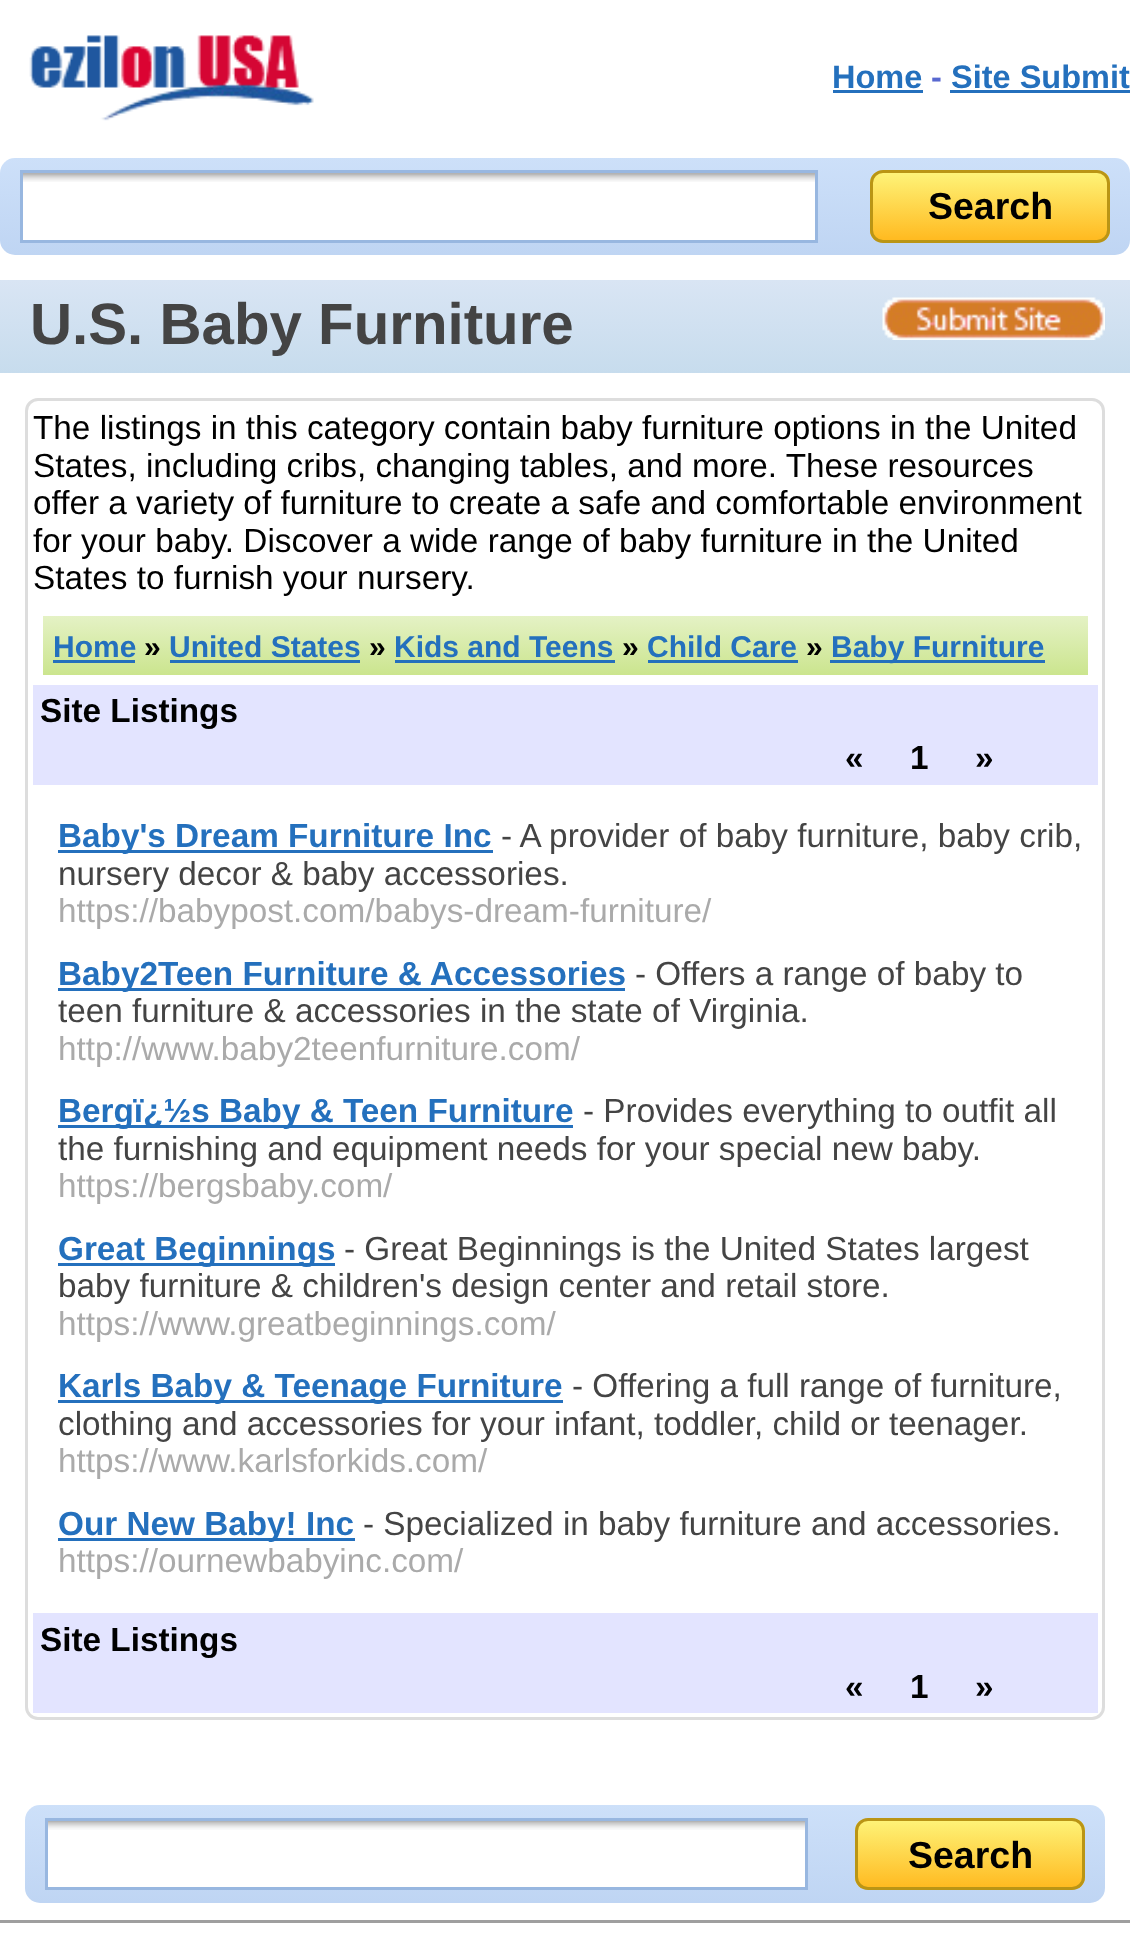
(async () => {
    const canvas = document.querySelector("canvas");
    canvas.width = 1130;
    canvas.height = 1933;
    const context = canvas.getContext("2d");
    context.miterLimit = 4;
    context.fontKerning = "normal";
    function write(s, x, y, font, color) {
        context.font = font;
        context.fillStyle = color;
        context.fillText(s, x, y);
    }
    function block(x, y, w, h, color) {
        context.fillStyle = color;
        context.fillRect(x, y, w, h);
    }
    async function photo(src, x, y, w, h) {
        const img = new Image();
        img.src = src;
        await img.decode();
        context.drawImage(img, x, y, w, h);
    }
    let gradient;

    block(0, 0, 1130, 1933, "rgb(255, 255, 255)");
    await photo("media/1.png", 29, 35, 285, 86);
    write("Home", 832, 88, "bold 32.5px Liberation Sans", "rgb(36, 112, 189)");
    block(833, 90, 90, 3, "rgb(36, 112, 189)");
    write("-", 931, 88, "bold 32.5px Liberation Sans", "rgb(88, 104, 208)");
    write("Site Submit", 951, 88, "bold 32.5px Liberation Sans", "rgb(36, 112, 189)");
    block(950, 90, 180, 3, "rgb(36, 112, 189)");
    gradient = context.createLinearGradient(565, 157, 565, 255);
    gradient.addColorStop(0, "rgb(205, 224, 249)");
    gradient.addColorStop(1, "rgb(191, 213, 243)");
    context.fillStyle = gradient;
    context.beginPath();
    context.roundRect(0, 158, 1130, 97, 15);
    context.fill();
    block(23, 182, 792, 58, "rgb(255, 255, 255)");
    await photo("media/2.png", 23, 173, 792, 9);
    context.strokeStyle = "rgb(152, 183, 224)";
    context.lineWidth = 3;
    context.strokeRect(21.5, 171.5, 795, 70);
    context.save();
    context.beginPath();
    context.roundRect(870, 170, 240, 73, 13);
    context.clip();
    gradient = context.createLinearGradient(990, 173, 990, 240);
    gradient.addColorStop(0, "rgb(254, 243, 120)");
    gradient.addColorStop(1, "rgb(255, 186, 32)");
    context.fillStyle = gradient;
    context.fillRect(870, 173, 240, 67);
    context.restore();
    context.beginPath();
    context.roundRect(871.5, 171.5, 237, 70, 11.5);
    context.strokeStyle = "rgb(186, 149, 21)";
    context.stroke();
    write("Search", 928, 219, "bold 37.5px Liberation Sans", "rgb(0, 0, 0)");
    gradient = context.createLinearGradient(565, 280, 565, 373);
    gradient.addColorStop(0, "rgb(217, 229, 244)");
    gradient.addColorStop(1, "rgb(199, 220, 237)");
    context.fillStyle = gradient;
    context.fillRect(0, 280, 1130, 93);
    write("U.S. Baby Furniture", 30, 344, "bold 58.25px Liberation Sans", "rgb(68, 68, 68)");
    await photo("media/3.png", 882, 297, 223, 43);
    context.beginPath();
    context.roundRect(26.5, 399.5, 1077, 1319, 11.5);
    context.strokeStyle = "rgb(221, 221, 221)";
    context.stroke();
    write("The listings in this category contain baby furniture options in the United", 33, 439, "33.3px Liberation Sans", "rgb(0, 0, 0)");
    write("States, including cribs, changing tables, and more. These resources", 33, 477, "33.3px Liberation Sans", "rgb(0, 0, 0)");
    write("offer a variety of furniture to create a safe and comfortable environment", 33, 514, "33.3px Liberation Sans", "rgb(0, 0, 0)");
    write("for your baby. Discover a wide range of baby furniture in the United", 33, 552, "33.3px Liberation Sans", "rgb(0, 0, 0)");
    write("States to furnish your nursery.", 33, 589, "33.3px Liberation Sans", "rgb(0, 0, 0)");
    gradient = context.createLinearGradient(565, 615, 565, 675);
    gradient.addColorStop(0, "rgb(229, 242, 198)");
    gradient.addColorStop(1, "rgb(203, 229, 142)");
    context.fillStyle = gradient;
    context.fillRect(43, 616, 1045, 59);
    write("Home", 53, 657, "bold 30px Liberation Sans", "rgb(36, 112, 189)");
    block(53, 660, 82, 3, "rgb(36, 112, 189)");
    write("»", 144, 657, "bold 30px Liberation Sans", "rgb(0, 0, 0)");
    write("United States", 169, 657, "bold 30px Liberation Sans", "rgb(36, 112, 189)");
    block(170, 660, 190, 3, "rgb(36, 112, 189)");
    write("»", 369, 657, "bold 30px Liberation Sans", "rgb(0, 0, 0)");
    write("Kids and Teens", 394, 657, "bold 30px Liberation Sans", "rgb(36, 112, 189)");
    block(395, 660, 220, 3, "rgb(36, 112, 189)");
    write("»", 622, 657, "bold 30px Liberation Sans", "rgb(0, 0, 0)");
    write("Child Care", 647, 657, "bold 30px Liberation Sans", "rgb(36, 112, 189)");
    block(648, 660, 150, 3, "rgb(36, 112, 189)");
    write("»", 806, 657, "bold 30px Liberation Sans", "rgb(0, 0, 0)");
    block(830, 660, 215, 3, "rgb(36, 112, 189)");
    write("Baby Furniture", 831, 657, "bold 30px Liberation Sans", "rgb(36, 112, 189)");
    block(33, 685, 1065, 100, "rgb(227, 228, 255)");
    write("Site Listings", 40, 722, "bold 33.3px Liberation Sans", "rgb(0, 0, 0)");
    write("«", 845, 769, "bold 33.3px Liberation Sans", "rgb(0, 0, 0)");
    write("1", 910, 769, "bold 33.3px Liberation Sans", "rgb(0, 0, 0)");
    write("»", 975, 769, "bold 33.3px Liberation Sans", "rgb(0, 0, 0)");
    block(58, 850, 435, 3, "rgb(36, 112, 189)");
    write("Baby's Dream Furniture Inc", 58, 847, "bold 33.3px Liberation Sans", "rgb(36, 112, 189)");
    write("- A provider of baby furniture, baby crib,", 501, 847, "33.3px Liberation Sans", "rgb(68, 68, 68)");
    write("nursery decor & baby accessories.", 58, 885, "33.3px Liberation Sans", "rgb(68, 68, 68)");
    write("https://babypost.com/babys-dream-furniture/", 58, 922, "33.3px Liberation Sans", "rgb(170, 170, 170)");
    block(58, 988, 567, 3, "rgb(36, 112, 189)");
    write("Baby2Teen Furniture & Accessories", 58, 985, "bold 33.3px Liberation Sans", "rgb(36, 112, 189)");
    write("- Offers a range of baby to", 635, 985, "33.3px Liberation Sans", "rgb(68, 68, 68)");
    write("teen furniture & accessories in the state of Virginia.", 58, 1022, "33.3px Liberation Sans", "rgb(68, 68, 68)");
    write("http://www.baby2teenfurniture.com/", 58, 1060, "33.3px Liberation Sans", "rgb(170, 170, 170)");
    block(58, 1125, 515, 3, "rgb(36, 112, 189)");
    write("Bergï¿½s Baby & Teen Furniture", 58, 1122, "bold 33.3px Liberation Sans", "rgb(36, 112, 189)");
    write("- Provides everything to outfit all", 583, 1122, "33.3px Liberation Sans", "rgb(68, 68, 68)");
    write("the furnishing and equipment needs for your special new baby.", 58, 1160, "33.3px Liberation Sans", "rgb(68, 68, 68)");
    write("https://bergsbaby.com/", 58, 1197, "33.3px Liberation Sans", "rgb(170, 170, 170)");
    block(58, 1263, 277, 3, "rgb(36, 112, 189)");
    write("Great Beginnings", 58, 1260, "bold 33.3px Liberation Sans", "rgb(36, 112, 189)");
    write("- Great Beginnings is the United States largest", 344, 1260, "33.3px Liberation Sans", "rgb(68, 68, 68)");
    write("baby furniture & children's design center and retail store.", 58, 1297, "33.3px Liberation Sans", "rgb(68, 68, 68)");
    write("https://www.greatbeginnings.com/", 58, 1335, "33.3px Liberation Sans", "rgb(170, 170, 170)");
    block(58, 1400, 505, 3, "rgb(36, 112, 189)");
    write("Karls Baby & Teenage Furniture", 58, 1397, "bold 33.3px Liberation Sans", "rgb(36, 112, 189)");
    write("- Offering a full range of furniture,", 572, 1397, "33.3px Liberation Sans", "rgb(68, 68, 68)");
    write("clothing and accessories for your infant, toddler, child or teenager.", 58, 1435, "33.3px Liberation Sans", "rgb(68, 68, 68)");
    write("https://www.karlsforkids.com/", 58, 1472, "33.3px Liberation Sans", "rgb(170, 170, 170)");
    block(58, 1538, 297, 3, "rgb(36, 112, 189)");
    write("Our New Baby! Inc", 58, 1535, "bold 33.3px Liberation Sans", "rgb(36, 112, 189)");
    write("- Specialized in baby furniture and accessories.", 363, 1535, "33.3px Liberation Sans", "rgb(68, 68, 68)");
    write("https://ournewbabyinc.com/", 58, 1572, "33.3px Liberation Sans", "rgb(170, 170, 170)");
    block(33, 1613, 1065, 100, "rgb(227, 228, 255)");
    write("Site Listings", 40, 1651, "bold 33.3px Liberation Sans", "rgb(0, 0, 0)");
    write("«", 845, 1698, "bold 33.3px Liberation Sans", "rgb(0, 0, 0)");
    write("1", 910, 1698, "bold 33.3px Liberation Sans", "rgb(0, 0, 0)");
    write("»", 975, 1698, "bold 33.3px Liberation Sans", "rgb(0, 0, 0)");
    gradient = context.createLinearGradient(565, 1805, 565, 1903);
    gradient.addColorStop(0, "rgb(205, 224, 249)");
    gradient.addColorStop(1, "rgb(191, 213, 243)");
    context.fillStyle = gradient;
    context.beginPath();
    context.roundRect(25, 1805, 1080, 98, 15);
    context.fill();
    block(48, 1830, 757, 57, "rgb(255, 255, 255)");
    await photo("media/4.png", 48, 1821, 757, 9);
    context.strokeStyle = "rgb(152, 183, 224)";
    context.strokeRect(46.5, 1819.5, 760, 69);
    context.save();
    context.beginPath();
    context.roundRect(855, 1818, 230, 72, 13);
    context.clip();
    gradient = context.createLinearGradient(970, 1820, 970, 1888);
    gradient.addColorStop(0, "rgb(254, 243, 120)");
    gradient.addColorStop(1, "rgb(255, 186, 32)");
    context.fillStyle = gradient;
    context.fillRect(855, 1820, 230, 68);
    context.restore();
    context.beginPath();
    context.roundRect(856.5, 1819.5, 227, 69, 11.5);
    context.strokeStyle = "rgb(186, 149, 21)";
    context.stroke();
    write("Search", 908, 1868, "bold 37.5px Liberation Sans", "rgb(0, 0, 0)");
    block(0, 1920, 1130, 3, "rgb(159, 159, 159)");
})();
